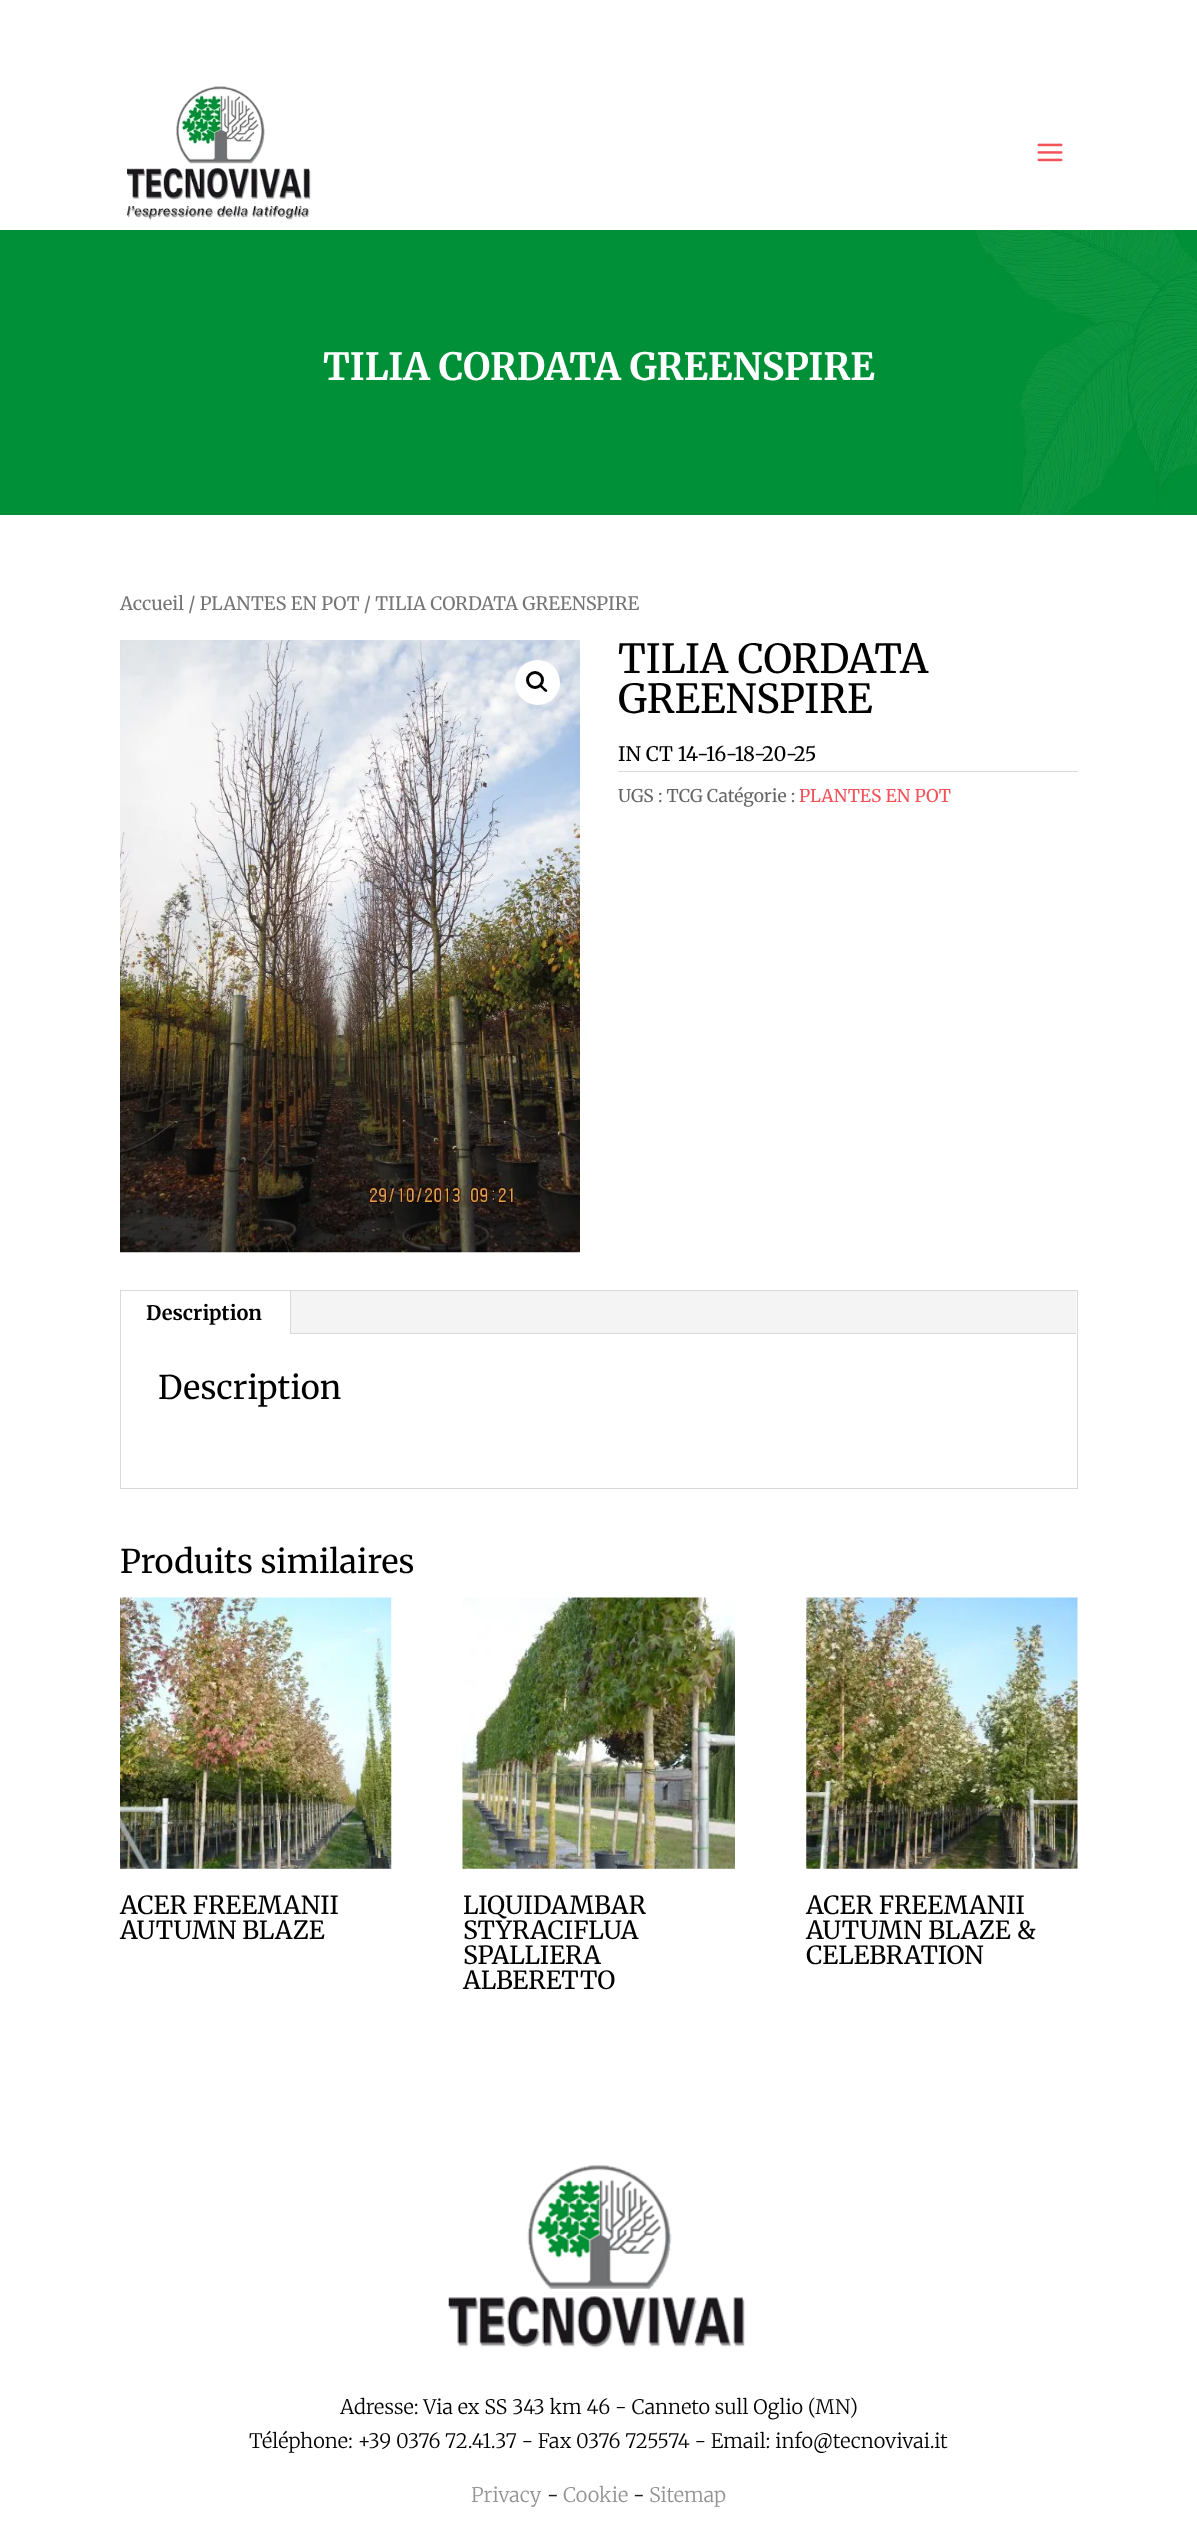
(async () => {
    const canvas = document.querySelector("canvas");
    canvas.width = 1197;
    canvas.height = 2532;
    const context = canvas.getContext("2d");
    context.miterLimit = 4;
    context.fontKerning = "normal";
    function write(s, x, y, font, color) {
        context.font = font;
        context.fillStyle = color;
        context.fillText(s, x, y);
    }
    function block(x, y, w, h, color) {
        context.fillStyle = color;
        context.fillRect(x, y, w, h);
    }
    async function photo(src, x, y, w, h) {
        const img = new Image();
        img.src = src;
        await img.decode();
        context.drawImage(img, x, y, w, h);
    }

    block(0, 0, 1197, 2532, "rgb(255, 255, 255)");
    await photo("media/1.png", 127, 86, 184, 134);
    await photo("media/2.png", 1037, 143, 26, 19);
    await photo("media/3.png", 0, 230, 1197, 285);
    write("TILIA CORDATA GREENSPIRE", 323, 380, "300 37.5px 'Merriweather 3'", "rgb(255, 255, 255)");
    write("Accueil / PLANTES EN POT / TILIA CORDATA GREENSPIRE", 120, 610, "300 18.4px Merriweather", "rgb(118, 118, 118)");
    await photo("media/4.png", 120, 640, 460, 613);
    context.fillStyle = "rgb(255, 255, 255)";
    context.beginPath();
    context.arc(537.5, 682.5, 22.5, 0, Math.PI * 2);
    context.fill();
    context.beginPath();
    context.arc(535, 680, 7.5, 0, Math.PI * 2);
    context.strokeStyle = "rgb(0, 0, 0)";
    context.lineWidth = 3;
    context.stroke();
    context.fillStyle = "rgb(0, 0, 0)";
    context.beginPath();
    context.moveTo(540, 684.5);
    context.bezierCurveTo(541, 683, 543.5, 686.5, 544, 687.5);
    context.bezierCurveTo(545, 688, 548.5, 690.5, 547, 691.5);
    context.bezierCurveTo(545.5, 693, 543, 690, 542.5, 689);
    context.bezierCurveTo(541.5, 688.5, 538.5, 686, 540, 684.5);
    context.closePath();
    context.fill();
    write("TILIA CORDATA", 618, 673, "300 40px Merriweather", "rgb(0, 0, 0)");
    write("GREENSPIRE", 618, 713, "300 40px Merriweather", "rgb(0, 0, 0)");
    write("IN CT 14-16-18-20-25", 618, 761, "300 20px Merriweather", "rgb(0, 0, 0)");
    block(618, 771, 460, 1, "rgb(218, 218, 218)");
    write("UGS : TCG Catégorie :", 618, 802, "300 17.5px Merriweather", "rgb(102, 102, 102)");
    write("PLANTES EN POT", 799, 802, "300 17.5px Merriweather", "rgb(243, 82, 90)");
    context.strokeStyle = "rgb(217, 217, 217)";
    context.lineWidth = 1;
    context.strokeRect(120.5, 1290.5, 957, 198);
    block(291, 1291, 785, 42, "rgb(244, 244, 244)");
    block(290, 1291, 1, 43, "rgb(217, 217, 217)");
    write("Description", 146, 1320, "300 20px 'Merriweather 3'", "rgb(0, 0, 0)");
    block(291, 1333, 785, 1, "rgb(217, 217, 217)");
    write("Description", 158, 1399, "300 32.5px Merriweather", "rgb(0, 0, 0)");
    write("Produits similaires", 120, 1573, "300 32.5px Merriweather", "rgb(0, 0, 0)");
    await photo("media/5.png", 120, 1597, 272, 272);
    write("ACER FREEMANII", 120, 1914, "300 25px Merriweather", "rgb(0, 0, 0)");
    write("AUTUMN BLAZE", 120, 1939, "300 25px Merriweather", "rgb(0, 0, 0)");
    await photo("media/6.png", 462, 1597, 273, 272);
    write("LIQUIDAMBAR", 463, 1914, "300 25px Merriweather", "rgb(0, 0, 0)");
    write("STYRACIFLUA", 463, 1939, "300 25px Merriweather", "rgb(0, 0, 0)");
    write("SPALLIERA", 463, 1964, "300 25px Merriweather", "rgb(0, 0, 0)");
    write("ALBERETTO", 463, 1989, "300 25px Merriweather", "rgb(0, 0, 0)");
    await photo("media/7.png", 806, 1597, 272, 272);
    write("ACER FREEMANII", 806, 1914, "300 25px Merriweather", "rgb(0, 0, 0)");
    write("AUTUMN BLAZE &", 806, 1939, "300 25px Merriweather", "rgb(0, 0, 0)");
    write("CELEBRATION", 806, 1964, "300 25px Merriweather", "rgb(0, 0, 0)");
    await photo("media/8.png", 448, 2165, 297, 183);
    write("Adresse: Via ex SS 343 km 46 - Canneto sull Oglio (MN)", 340, 2414, "300 20px 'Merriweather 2'", "rgb(0, 0, 0)");
    write("Téléphone: +39 0376 72.41.37 - Fax 0376 725574 - Email: info@tecnovivai.it", 249, 2448, "300 20px 'Merriweather 2'", "rgb(0, 0, 0)");
    write("Privacy", 471, 2502, "300 20px 'Merriweather 2'", "rgb(147, 147, 147)");
    write("-", 547, 2502, "300 20px Merriweather", "rgb(30, 30, 30)");
    write("Cookie", 563, 2502, "300 20px 'Merriweather 2'", "rgb(147, 147, 147)");
    write("-", 633, 2502, "300 20px Merriweather", "rgb(30, 30, 30)");
    write("Sitemap", 649, 2502, "300 20px 'Merriweather 2'", "rgb(147, 147, 147)");
})();
